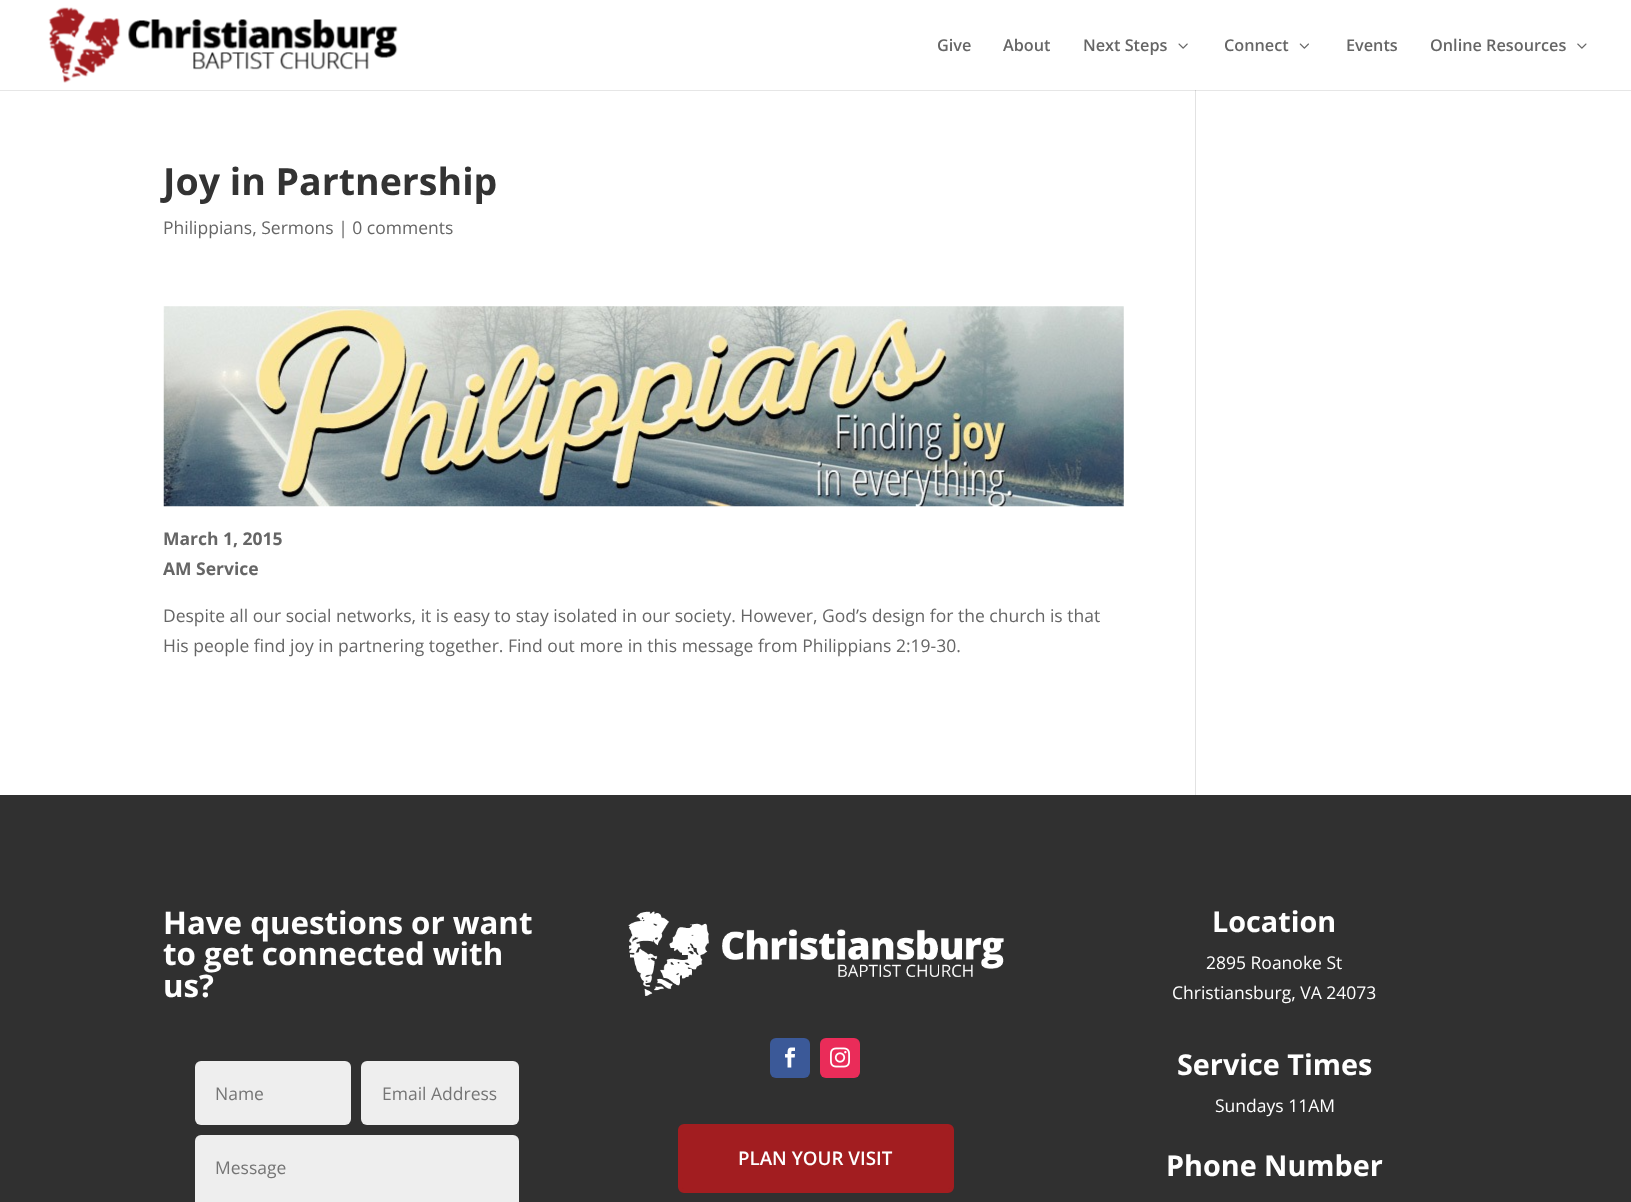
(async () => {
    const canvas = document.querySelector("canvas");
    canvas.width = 1631;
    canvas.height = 1202;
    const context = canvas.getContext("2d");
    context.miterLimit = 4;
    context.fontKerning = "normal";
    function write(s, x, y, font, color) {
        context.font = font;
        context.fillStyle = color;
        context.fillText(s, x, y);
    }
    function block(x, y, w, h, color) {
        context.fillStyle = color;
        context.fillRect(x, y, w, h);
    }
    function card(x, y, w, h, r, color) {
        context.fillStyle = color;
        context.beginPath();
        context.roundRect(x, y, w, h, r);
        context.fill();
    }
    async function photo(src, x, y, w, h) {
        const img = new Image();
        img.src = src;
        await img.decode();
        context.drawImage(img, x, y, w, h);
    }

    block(0, 0, 1631, 1202, "rgb(255, 255, 255)");
    block(0, 90, 1631, 1, "rgb(230, 230, 230)");
    await photo("media/1.png", 48, 7, 350, 76);
    write("Give", 937, 51, "600 16.25px Open Sans", "rgb(102, 102, 102)");
    write("About", 1003, 51, "600 16.25px Open Sans", "rgb(102, 102, 102)");
    write("Next Steps", 1083, 51, "600 16.25px Open Sans", "rgb(102, 102, 102)");
    await photo("media/2.png", 1178, 43, 10, 6);
    write("Connect", 1224, 51, "600 16.25px Open Sans", "rgb(102, 102, 102)");
    await photo("media/3.png", 1299, 43, 10, 6);
    write("Events", 1346, 51, "600 16.25px Open Sans", "rgb(102, 102, 102)");
    write("Online Resources", 1430, 51, "600 16.25px Open Sans", "rgb(102, 102, 102)");
    await photo("media/4.png", 1577, 43, 10, 6);
    write("Joy in Partnership", 163, 195, "bold 37.5px Open Sans", "rgb(51, 51, 51)");
    write("Philippians, Sermons | 0 comments", 163, 234, "17.5px Open Sans", "rgb(102, 102, 102)");
    await photo("media/5.png", 163, 306, 961, 201);
    write("March 1, 2015", 163, 545, "bold 17.5px Open Sans", "rgb(102, 102, 102)");
    write("AM Service", 163, 575, "bold 17.5px Open Sans", "rgb(102, 102, 102)");
    write("Despite all our social networks, it is easy to stay isolated in our society. However, God’s design for the church is that", 163, 622, "17.5px Open Sans", "rgb(102, 102, 102)");
    write("His people find joy in partnering together. Find out more in this message from Philippians 2:19-30.", 163, 652, "17.5px Open Sans", "rgb(102, 102, 102)");
    block(1195, 90, 1, 705, "rgb(226, 226, 226)");
    block(1195, 90, 1, 1, "rgb(203, 203, 203)");
    block(0, 795, 1631, 407, "rgb(48, 48, 48)");
    write("Have questions or want", 163, 934, "bold 31.25px Open Sans", "rgb(255, 255, 255)");
    write("to get connected with", 163, 965, "bold 31.25px Open Sans", "rgb(255, 255, 255)");
    write("us?", 163, 997, "bold 31.25px Open Sans", "rgb(255, 255, 255)");
    card(195, 1061, 156, 64, 6, "rgb(238, 238, 238)");
    write("Name", 215, 1100, "17.5px Open Sans", "rgb(117, 117, 117)");
    card(361, 1061, 158, 64, 6, "rgb(238, 238, 238)");
    write("Email Address", 382, 1100, "17.5px Open Sans", "rgb(117, 117, 117)");
    card(195, 1135, 324, 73, 6, "rgb(238, 238, 238)");
    write("Message", 215, 1174, "17.5px Open Sans", "rgb(117, 117, 117)");
    await photo("media/6.png", 628, 911, 376, 85);
    card(770, 1038, 40, 40, 6, "rgb(59, 89, 152)");
    await photo("media/7.png", 785, 1047, 10, 21);
    card(820, 1038, 40, 40, 6, "rgb(234, 44, 89)");
    await photo("media/8.png", 830, 1047, 20, 21);
    context.fillStyle = "rgb(162, 29, 32)";
    context.beginPath();
    context.roundRect(680, 1126, 272, 65, 4);
    context.fill();
    context.strokeStyle = "rgb(162, 29, 32)";
    context.lineWidth = 4;
    context.stroke();
    write("PLAN YOUR VISIT", 738, 1165, "600 18.75px Open Sans", "rgb(255, 255, 255)");
    write("Location", 1212, 932, "bold 28.75px Open Sans", "rgb(255, 255, 255)");
    write("2895 Roanoke St", 1206, 969, "17.5px Open Sans", "rgb(255, 255, 255)");
    write("Christiansburg, VA 24073", 1172, 999, "17.5px Open Sans", "rgb(255, 255, 255)");
    write("Service Times", 1177, 1075, "bold 28.75px Open Sans", "rgb(255, 255, 255)");
    write("Sundays 11AM", 1215, 1112, "17.5px Open Sans", "rgb(255, 255, 255)");
    write("Phone Number", 1166, 1176, "bold 28.75px Open Sans", "rgb(255, 255, 255)");
})();
